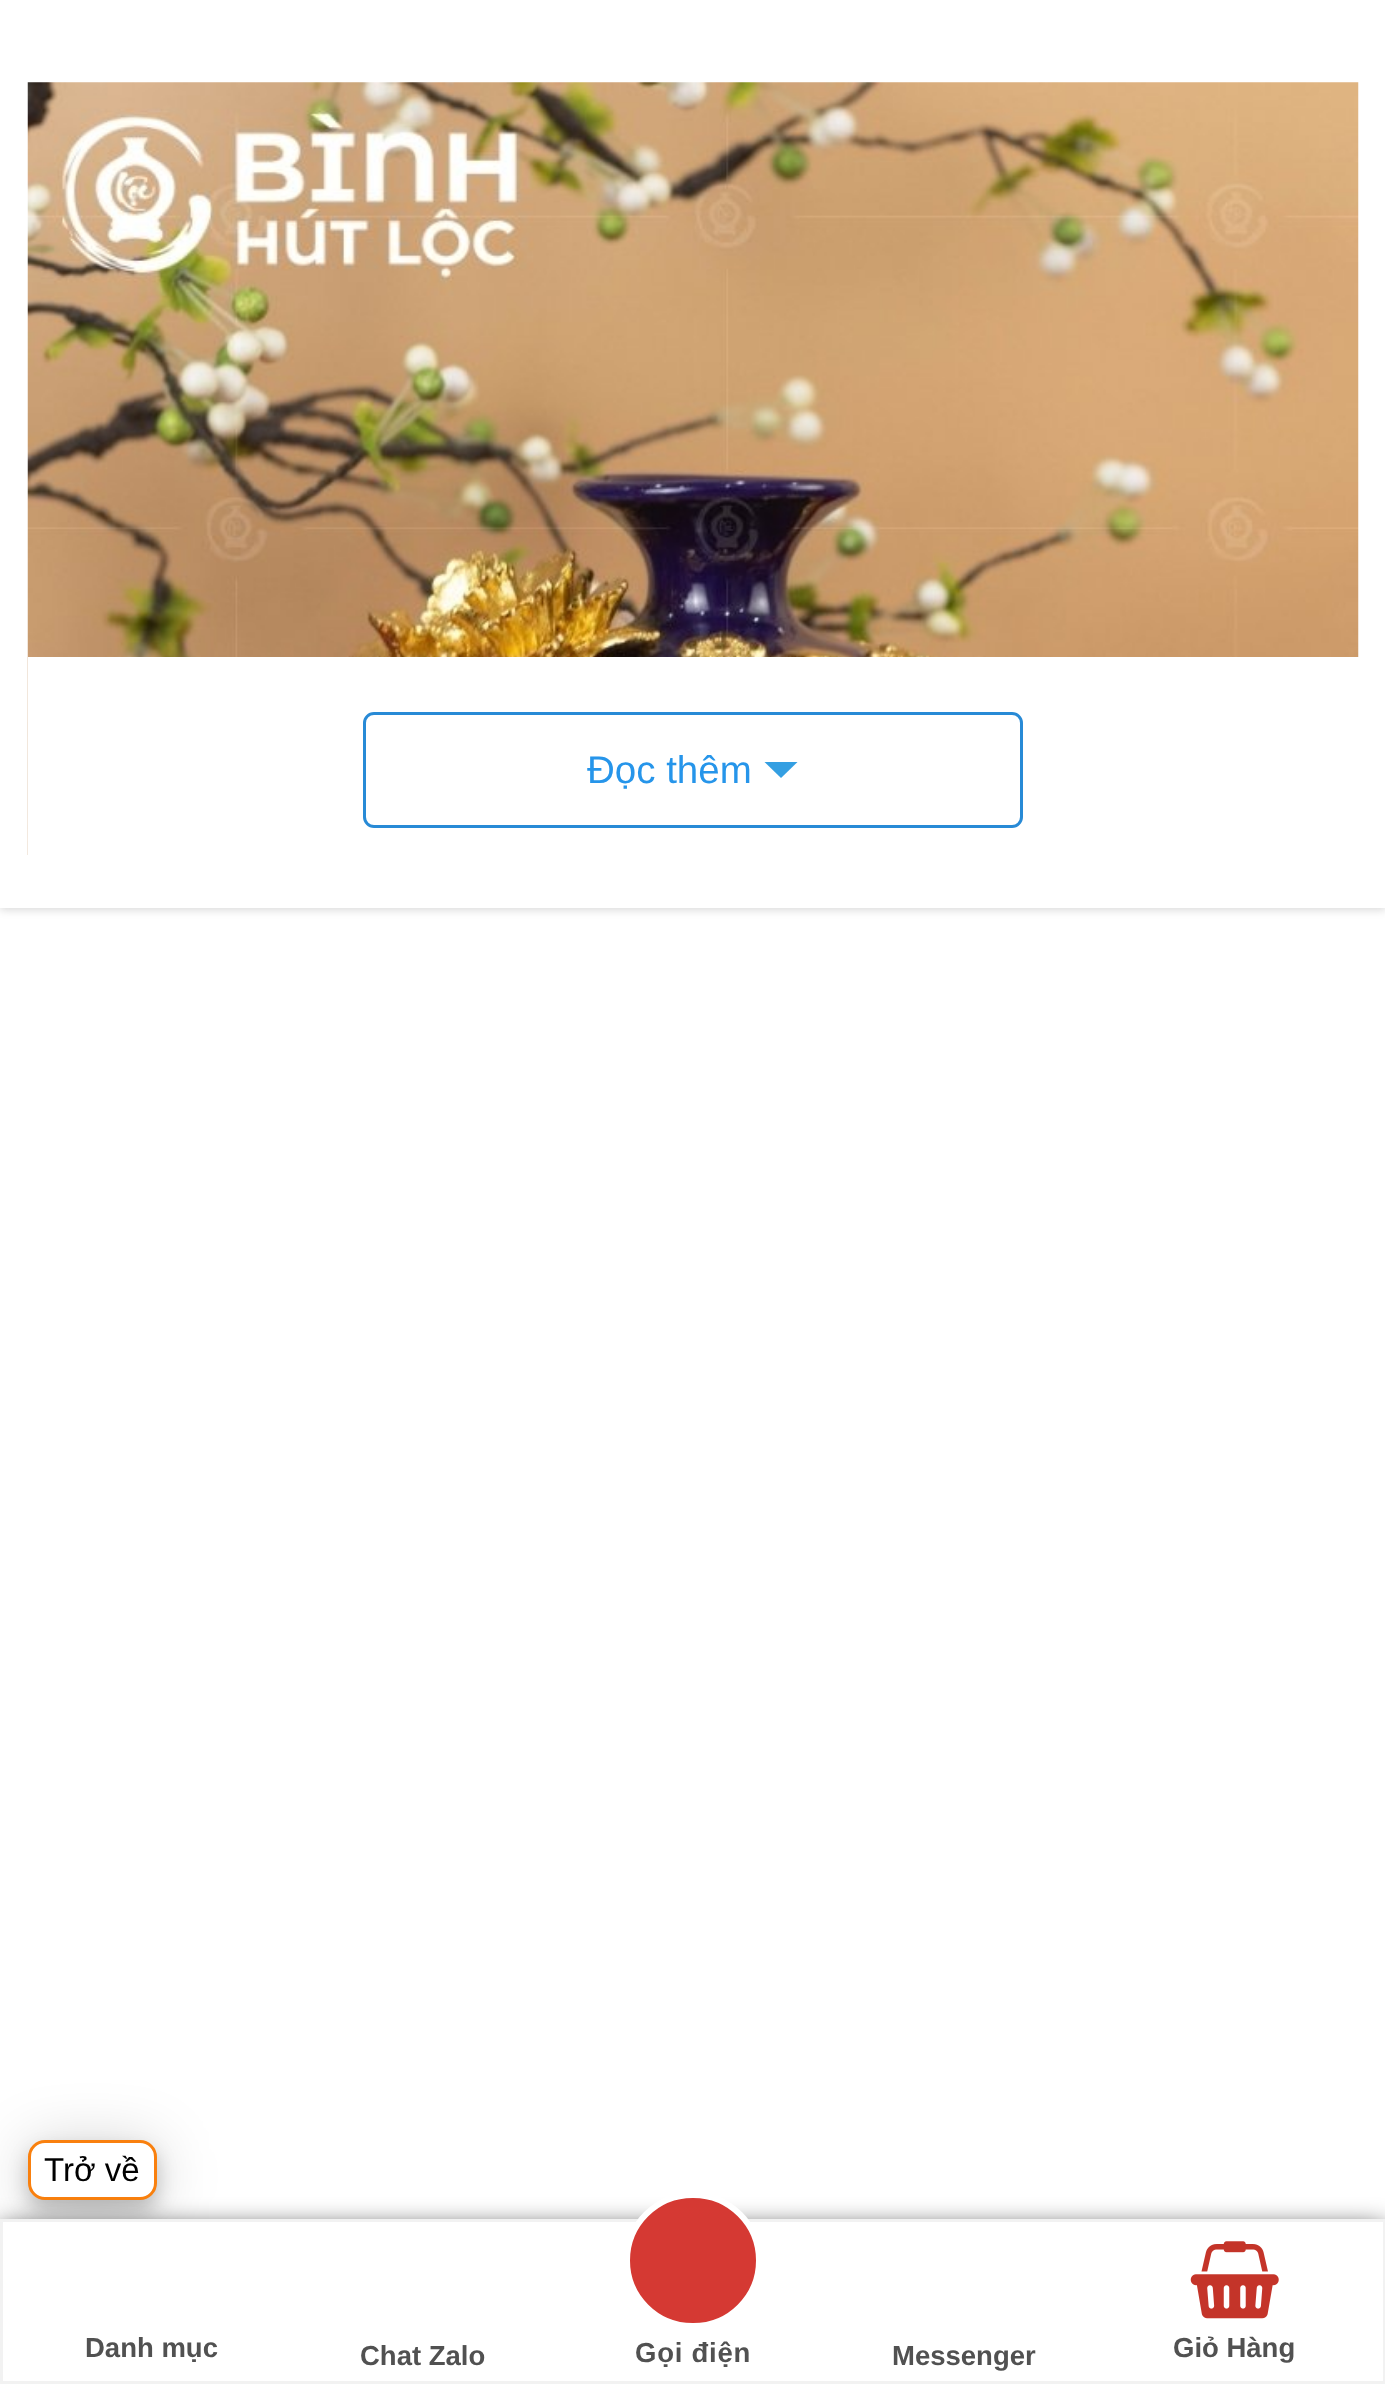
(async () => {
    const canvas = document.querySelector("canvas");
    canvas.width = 1385;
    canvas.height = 2384;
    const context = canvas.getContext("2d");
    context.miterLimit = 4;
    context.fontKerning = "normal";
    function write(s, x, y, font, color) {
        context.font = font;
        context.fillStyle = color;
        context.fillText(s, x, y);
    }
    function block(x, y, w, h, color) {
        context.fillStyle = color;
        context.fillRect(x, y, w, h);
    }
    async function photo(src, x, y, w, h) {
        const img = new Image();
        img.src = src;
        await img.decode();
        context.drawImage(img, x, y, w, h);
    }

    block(0, 0, 1385, 2384, "rgb(255, 255, 255)");
    context.save();
    context.beginPath();
    context.moveTo(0, 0);
    context.lineTo(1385, 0);
    context.lineTo(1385, 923);
    context.lineTo(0, 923);
    context.closePath();
    context.moveTo(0, -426);
    context.lineTo(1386, -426);
    context.lineTo(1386, 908);
    context.lineTo(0, 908);
    context.closePath();
    context.clip("evenodd");
    context.fillStyle = "rgba(0, 0, 0, 0.15)";
    context.filter = "blur(4px)";
    context.beginPath();
    context.rect(0, -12, 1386, 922);
    context.fill();
    context.filter = "none";
    context.restore();
    await photo("media/1.png", 27, 82, 1332, 773);
    block(28, 657, 1331, 198, "rgb(255, 255, 255)");
    context.beginPath();
    context.roundRect(364.5, 713.5, 657, 113, 9.5);
    context.strokeStyle = "rgb(40, 138, 214)";
    context.lineWidth = 3;
    context.stroke();
    write("Đọc thêm", 587, 783, "38.5px Liberation Sans", "rgb(38, 149, 234)");
    context.fillStyle = "rgb(52, 159, 226)";
    context.beginPath();
    context.moveTo(764.5, 762);
    context.lineTo(797.5, 762);
    context.lineTo(781, 778);
    context.closePath();
    context.fill();
    context.fillStyle = "rgba(0, 0, 0, 0.19)";
    context.filter = "blur(30px)";
    context.beginPath();
    context.roundRect(28, 2145, 129, 61, 17);
    context.fill();
    context.filter = "none";
    context.fillStyle = "rgba(0, 0, 0, 0.2)";
    context.filter = "blur(9.5px)";
    context.beginPath();
    context.roundRect(28, 2151, 129, 60, 17);
    context.fill();
    context.filter = "none";
    context.fillStyle = "rgb(255, 255, 255)";
    context.beginPath();
    context.roundRect(29.5, 2141.5, 126, 57, 15.5);
    context.fill();
    context.strokeStyle = "rgb(249, 128, 14)";
    context.stroke();
    write("Trở về", 44, 2181, "33px Liberation Sans", "rgb(0, 0, 0)");
    context.filter = "blur(14px)";
    context.beginPath();
    context.rect(0, 2230, 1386, 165);
    context.fill();
    context.filter = "none";
    context.fillStyle = "rgb(255, 255, 255)";
    context.beginPath();
    context.rect(1.5, 2220.5, 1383, 162);
    context.fill();
    context.strokeStyle = "rgb(242, 242, 242)";
    context.stroke();
    write("Danh mục", 85, 2357, "bold 27.5px Liberation Sans", "rgb(81, 81, 81)");
    write("Chat Zalo", 360, 2365, "bold 27.5px Liberation Sans", "rgb(81, 81, 81)");
    context.fillStyle = "rgb(213, 57, 51)";
    context.beginPath();
    context.roundRect(627, 2195, 132, 131, 65.5);
    context.fill();
    context.strokeStyle = "rgb(255, 255, 255)";
    context.lineWidth = 6;
    context.stroke();
    context.letterSpacing = "0.75px";
    write("Gọi điện", 635, 2362, "bold 27.5px Liberation Sans", "rgb(81, 81, 81)");
    context.letterSpacing = "0px";
    write("Messenger", 892, 2365, "bold 27.5px Liberation Sans", "rgb(81, 81, 81)");
    await photo("media/2.png", 1190, 2241, 89, 78);
    write("Giỏ Hàng", 1173, 2357, "bold 27.5px Liberation Sans", "rgb(81, 81, 81)");
})();
